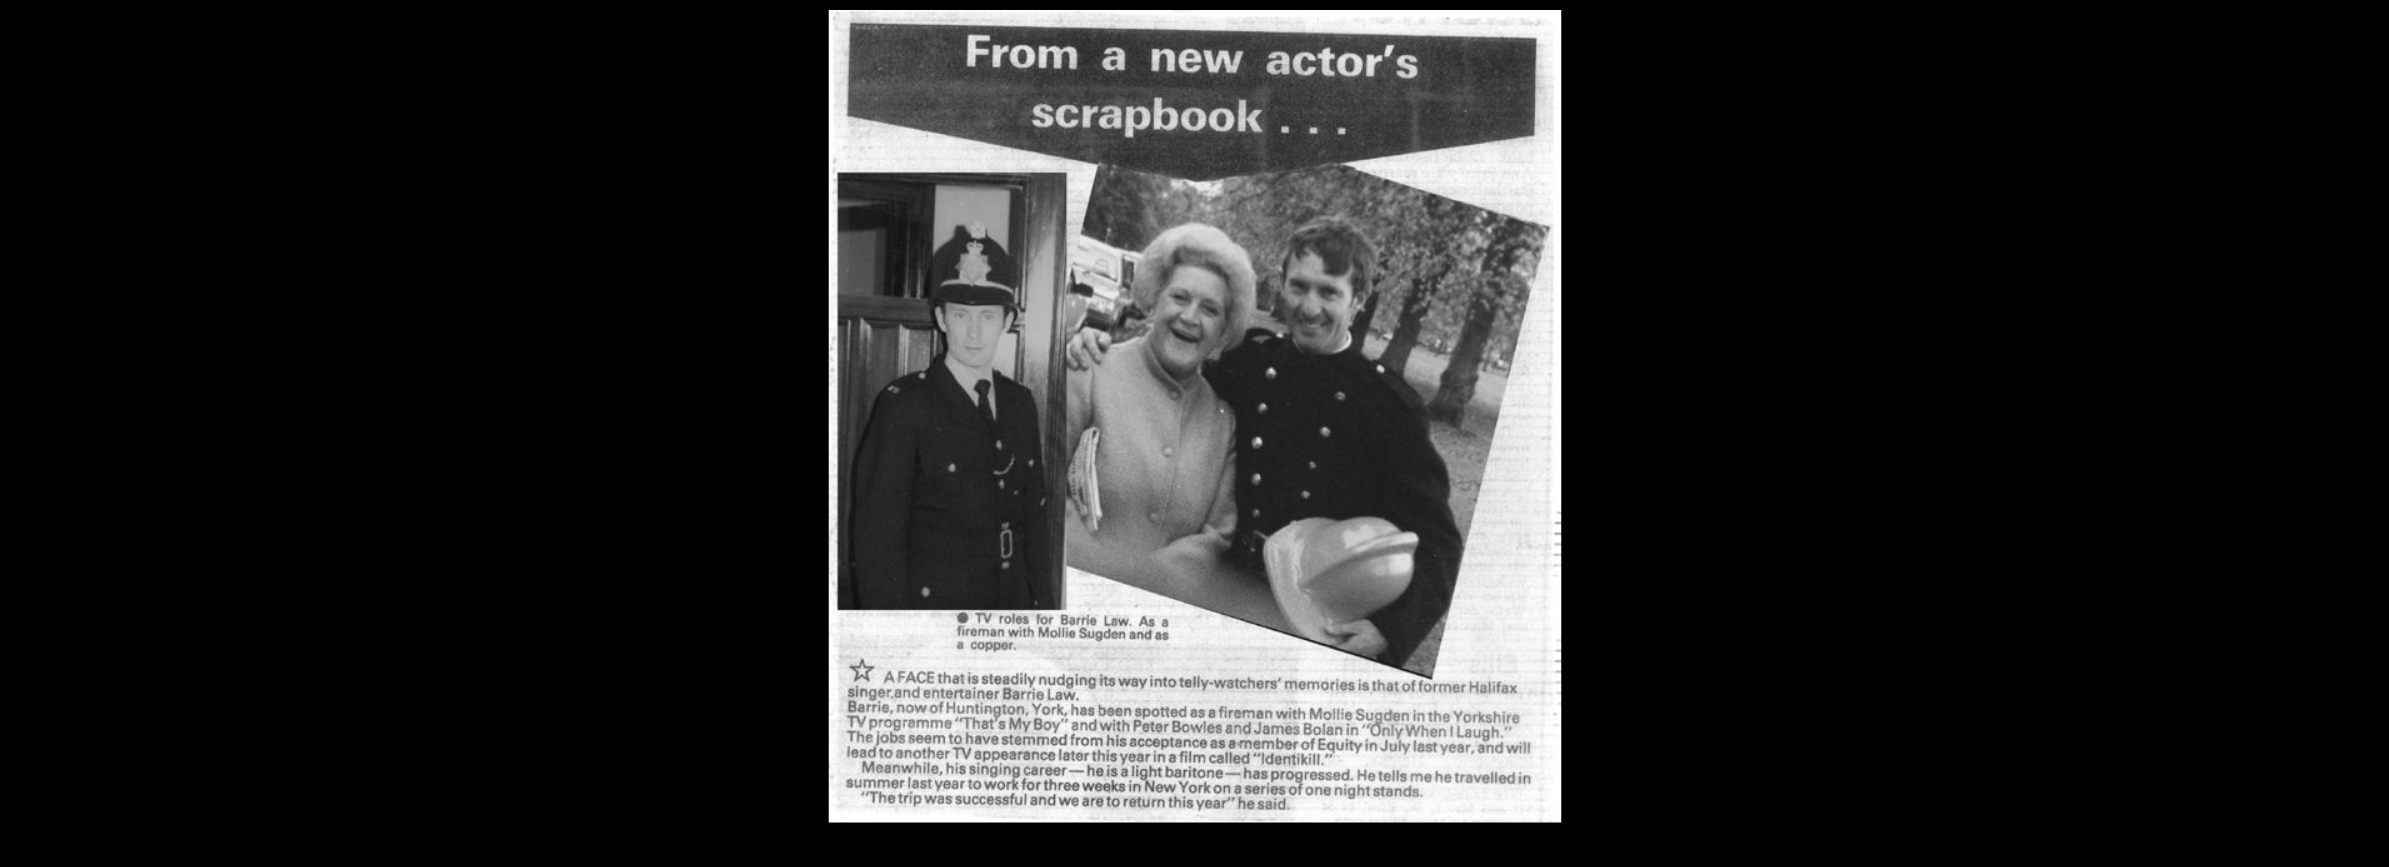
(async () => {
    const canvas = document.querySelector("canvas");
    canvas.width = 2389;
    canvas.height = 867;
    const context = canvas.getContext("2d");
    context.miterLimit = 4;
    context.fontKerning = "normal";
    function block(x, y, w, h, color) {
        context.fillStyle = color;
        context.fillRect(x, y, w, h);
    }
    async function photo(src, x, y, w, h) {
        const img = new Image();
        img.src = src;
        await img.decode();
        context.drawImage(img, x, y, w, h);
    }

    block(0, 0, 2389, 867, "rgb(0, 0, 0)");
    await photo("media/1.png", 828, 10, 734, 813);
})();
